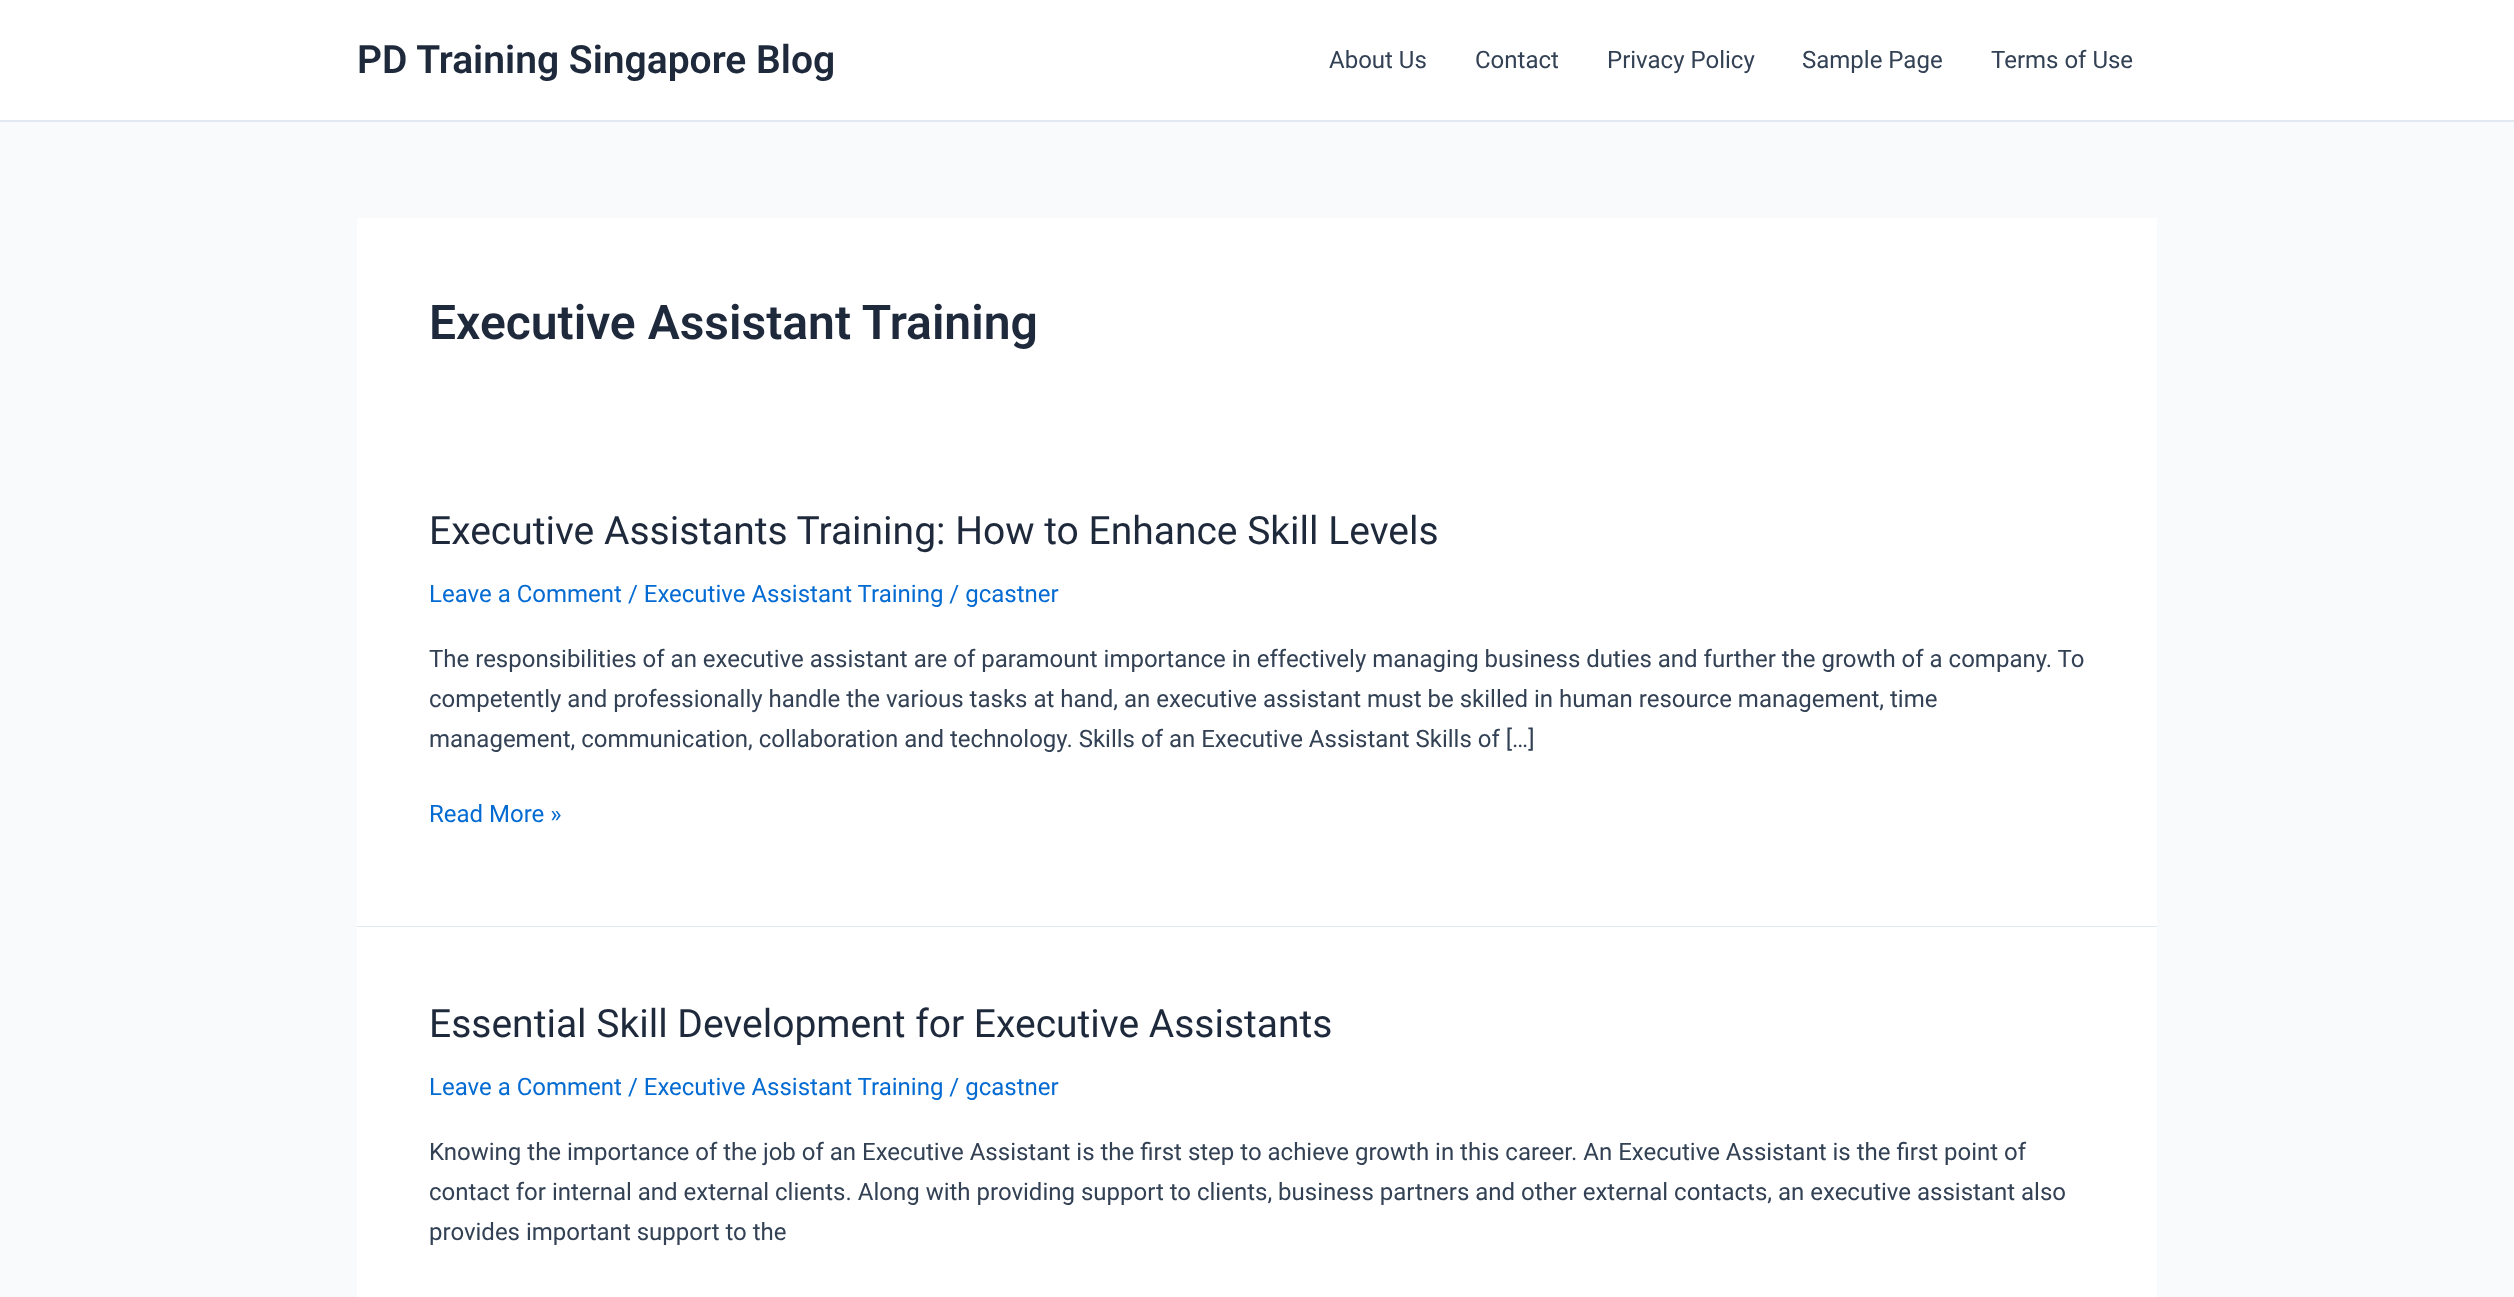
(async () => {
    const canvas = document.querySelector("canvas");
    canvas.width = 2514;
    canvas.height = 1297;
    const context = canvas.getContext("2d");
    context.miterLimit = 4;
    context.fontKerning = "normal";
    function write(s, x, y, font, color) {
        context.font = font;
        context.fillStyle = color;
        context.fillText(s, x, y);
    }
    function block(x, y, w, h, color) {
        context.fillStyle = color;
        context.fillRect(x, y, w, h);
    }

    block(0, 0, 2514, 1297, "rgb(249, 250, 251)");
    block(0, 0, 2514, 120, "rgb(255, 255, 255)");
    block(0, 120, 2514, 2, "rgb(226, 232, 240)");
    write("PD Training Singapore Blog", 357, 73, "600 39px Roboto", "rgb(30, 41, 59)");
    write("About Us", 1329, 68, "24px Roboto", "rgb(51, 65, 85)");
    write("Contact", 1475, 68, "24px Roboto", "rgb(51, 65, 85)");
    write("Privacy Policy", 1607, 68, "24px Roboto", "rgb(51, 65, 85)");
    write("Sample Page", 1802, 68, "24px Roboto", "rgb(51, 65, 85)");
    write("Terms of Use", 1991, 68, "24px Roboto", "rgb(51, 65, 85)");
    block(357, 218, 1800, 708, "rgb(255, 255, 255)");
    write("Executive Assistant Training", 429, 339, "600 48px Roboto", "rgb(30, 41, 59)");
    block(357, 926, 1800, 1, "rgb(226, 232, 240)");
    write("Executive Assistants Training: How to Enhance Skill Levels", 429, 544, "39px Roboto", "rgb(30, 41, 59)");
    write("Leave a Comment / Executive Assistant Training / gcastner", 429, 602, "24px Roboto", "rgb(4, 107, 210)");
    write("The responsibilities of an executive assistant are of paramount importance in effectively managing business duties and further the growth of a company. To", 429, 667, "24px Roboto", "rgb(51, 65, 85)");
    write("competently and professionally handle the various tasks at hand, an executive assistant must be skilled in human resource management, time", 429, 707, "24px Roboto", "rgb(51, 65, 85)");
    write("management, communication, collaboration and technology. Skills of an Executive Assistant Skills of […]", 429, 747, "24px Roboto", "rgb(51, 65, 85)");
    write("Read More »", 429, 822, "24px Roboto", "rgb(4, 107, 210)");
    block(357, 927, 1800, 370, "rgb(255, 255, 255)");
    write("Essential Skill Development for Executive Assistants", 429, 1037, "39px Roboto", "rgb(30, 41, 59)");
    write("Leave a Comment / Executive Assistant Training / gcastner", 429, 1095, "24px Roboto", "rgb(4, 107, 210)");
    write("Knowing the importance of the job of an Executive Assistant is the first step to achieve growth in this career. An Executive Assistant is the first point of", 429, 1160, "24px Roboto", "rgb(51, 65, 85)");
    write("contact for internal and external clients. Along with providing support to clients, business partners and other external contacts, an executive assistant also", 429, 1200, "24px Roboto", "rgb(51, 65, 85)");
    write("provides important support to the", 429, 1240, "24px Roboto", "rgb(51, 65, 85)");
})();
